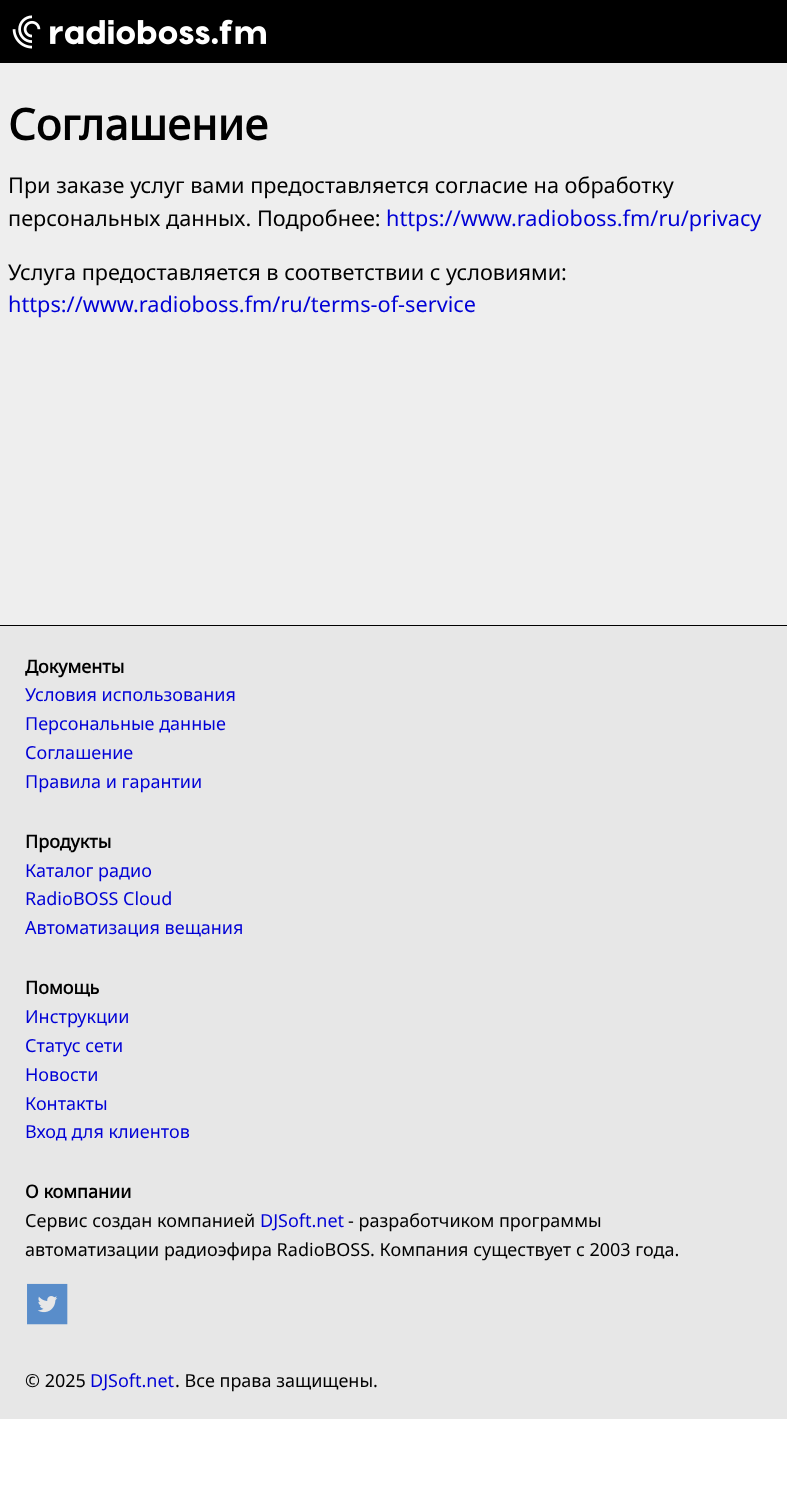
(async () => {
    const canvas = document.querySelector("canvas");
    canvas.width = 787;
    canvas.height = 1505;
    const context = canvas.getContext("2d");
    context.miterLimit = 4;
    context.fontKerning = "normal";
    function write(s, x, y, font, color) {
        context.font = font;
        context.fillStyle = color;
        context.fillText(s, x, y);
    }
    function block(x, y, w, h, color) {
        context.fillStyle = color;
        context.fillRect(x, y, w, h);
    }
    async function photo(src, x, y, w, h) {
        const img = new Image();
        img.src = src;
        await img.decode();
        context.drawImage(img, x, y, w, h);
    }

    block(0, 0, 787, 1505, "rgb(255, 255, 255)");
    block(0, 0, 787, 63, "rgb(0, 0, 0)");
    await photo("media/1.png", 12, 15, 254, 34);
    block(0, 63, 787, 562, "rgb(238, 238, 238)");
    write("Соглашение", 8, 140, "bold 43.25px Noto Sans", "rgb(0, 0, 0)");
    write("При заказе услуг вами предоставляется согласие на обработку", 8, 193, "21.7px Noto Sans", "rgb(0, 0, 0)");
    write("персональных данных. Подробнее:", 8, 226, "21.7px Noto Sans", "rgb(0, 0, 0)");
    write("https://www.radioboss.fm/ru/privacy", 386, 226, "21.7px Noto Sans", "rgb(0, 0, 214)");
    write("Услуга предоставляется в соответствии с условиями:", 8, 280, "21.7px Noto Sans", "rgb(0, 0, 0)");
    write("https://www.radioboss.fm/ru/terms-of-service", 8, 312, "21.7px Noto Sans", "rgb(0, 0, 214)");
    block(0, 626, 787, 793, "rgb(231, 231, 231)");
    block(0, 625, 787, 1, "rgb(0, 0, 0)");
    write("Документы", 25, 673, "bold 18px Noto Sans", "rgb(0, 0, 0)");
    write("Условия использования", 25, 701, "18px Noto Sans", "rgb(0, 0, 214)");
    write("Персональные данные", 25, 730, "18px Noto Sans", "rgb(0, 0, 214)");
    write("Соглашение", 25, 759, "18px Noto Sans", "rgb(0, 0, 214)");
    write("Правила и гарантии", 25, 788, "18px Noto Sans", "rgb(0, 0, 214)");
    write("Продукты", 25, 848, "bold 18px Noto Sans", "rgb(0, 0, 0)");
    write("Каталог радио", 25, 877, "18px Noto Sans", "rgb(0, 0, 214)");
    write("RadioBOSS Cloud", 25, 905, "18px Noto Sans", "rgb(0, 0, 214)");
    write("Автоматизация вещания", 25, 934, "18px Noto Sans", "rgb(0, 0, 214)");
    write("Помощь", 25, 994, "bold 18px Noto Sans", "rgb(0, 0, 0)");
    write("Инструкции", 25, 1023, "18px Noto Sans", "rgb(0, 0, 214)");
    write("Статус сети", 25, 1052, "18px Noto Sans", "rgb(0, 0, 214)");
    write("Новости", 25, 1081, "18px Noto Sans", "rgb(0, 0, 214)");
    write("Контакты", 25, 1110, "18px Noto Sans", "rgb(0, 0, 214)");
    write("Вход для клиентов", 25, 1138, "18px Noto Sans", "rgb(0, 0, 214)");
    write("О компании", 25, 1198, "bold 18px Noto Sans", "rgb(0, 0, 0)");
    write("Сервис создан компанией", 25, 1227, "18px Noto Sans", "rgb(0, 0, 0)");
    write("DJSoft.net", 260, 1227, "18px Noto Sans", "rgb(0, 0, 214)");
    write("- разработчиком программы", 348, 1227, "18px Noto Sans", "rgb(0, 0, 0)");
    write("автоматизации радиоэфира RadioBOSS. Компания существует с 2003 года.", 25, 1256, "18px Noto Sans", "rgb(0, 0, 0)");
    await photo("media/2.png", 27, 1283, 41, 42);
    write("© 2025", 25, 1387, "18px Noto Sans", "rgb(0, 0, 0)");
    write("DJSoft.net", 90, 1387, "18px Noto Sans", "rgb(0, 0, 214)");
    write(". Все права защищены.", 175, 1387, "18px Noto Sans", "rgb(0, 0, 0)");
})();
